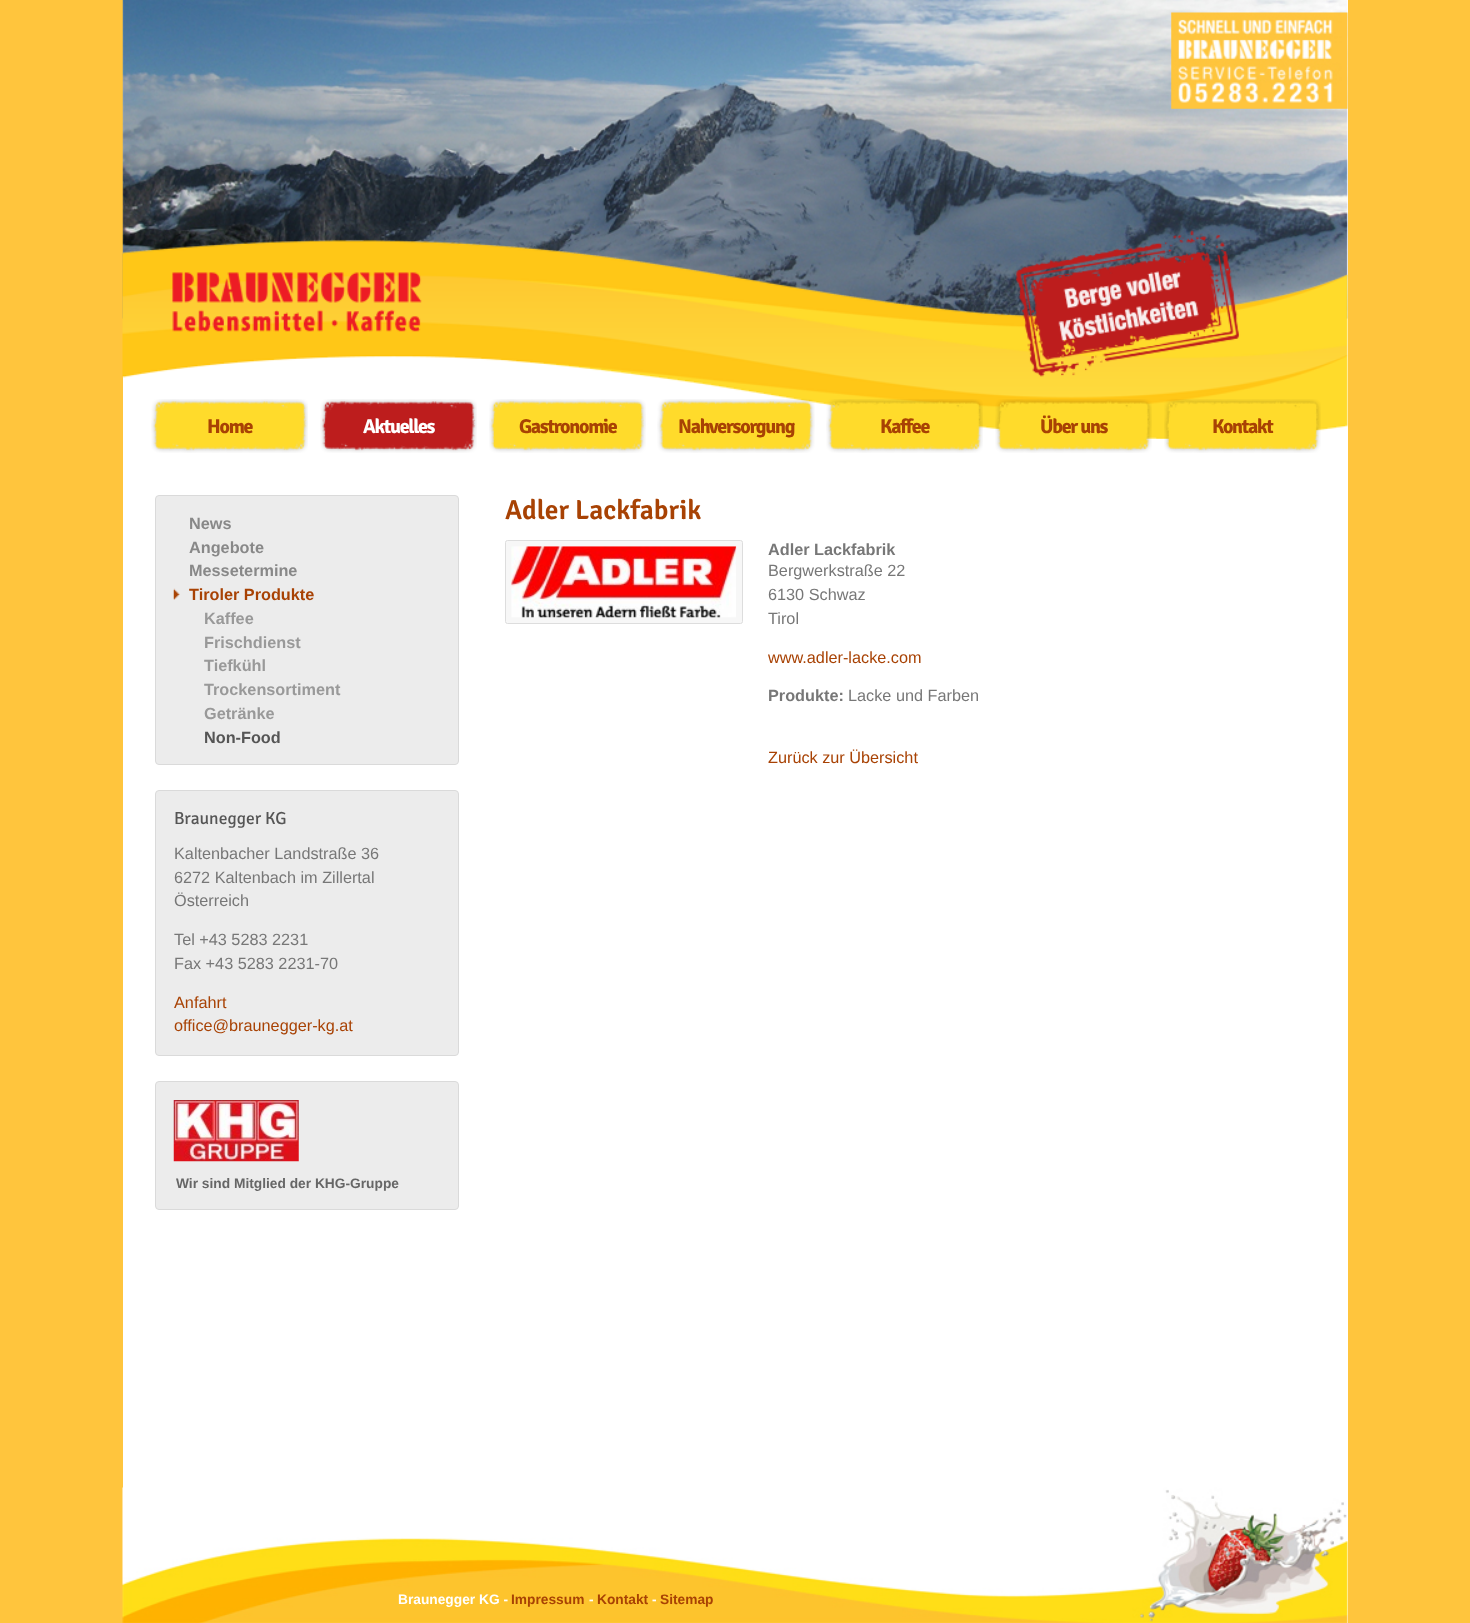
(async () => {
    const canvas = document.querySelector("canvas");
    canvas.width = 1470;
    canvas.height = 1623;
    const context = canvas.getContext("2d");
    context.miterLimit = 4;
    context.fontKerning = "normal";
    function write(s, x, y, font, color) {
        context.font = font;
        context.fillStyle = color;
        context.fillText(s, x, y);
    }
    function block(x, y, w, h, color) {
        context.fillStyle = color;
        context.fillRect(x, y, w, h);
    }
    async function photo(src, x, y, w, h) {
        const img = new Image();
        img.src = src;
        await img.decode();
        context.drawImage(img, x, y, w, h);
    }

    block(0, 0, 1470, 1623, "rgb(255, 197, 61)");
    block(123, 0, 1225, 1623, "rgb(255, 255, 255)");
    await photo("media/1.png", 122, 0, 1226, 319);
    await photo("media/2.png", 1171, 12, 177, 97);
    await photo("media/3.png", 122, 230, 1226, 209);
    await photo("media/4.png", 172, 272, 250, 60);
    await photo("media/5.png", 151, 399, 157, 54);
    context.letterSpacing = "-1.25px";
    write("Home", 207, 433, "bold 20px Signika", "rgb(168, 66, 4)");
    await photo("media/6.png", 320, 399, 157, 54);
    write("Aktuelles", 363, 433, "bold 20px Signika", "rgb(255, 255, 255)");
    await photo("media/7.png", 489, 399, 157, 54);
    write("Gastronomie", 519, 433, "bold 20px Signika", "rgb(168, 66, 4)");
    await photo("media/8.png", 657, 399, 158, 54);
    write("Nahversorgung", 678, 433, "bold 20px Signika", "rgb(168, 66, 4)");
    await photo("media/9.png", 826, 399, 157, 54);
    write("Kaffee", 880, 433, "bold 20px Signika", "rgb(168, 66, 4)");
    await photo("media/10.png", 995, 399, 157, 54);
    write("Über uns", 1040, 433, "bold 20px Signika", "rgb(168, 66, 4)");
    await photo("media/11.png", 1164, 399, 157, 54);
    write("Kontakt", 1212, 433, "bold 20px Signika", "rgb(168, 66, 4)");
    context.fillStyle = "rgb(236, 236, 236)";
    context.beginPath();
    context.roundRect(155.5, 495.5, 303, 269, 3.5);
    context.fill();
    context.strokeStyle = "rgb(218, 218, 218)";
    context.stroke();
    context.letterSpacing = "0px";
    write("News", 189, 529, "bold 16.25px Liberation Sans", "rgb(136, 136, 136)");
    write("Angebote", 189, 553, "bold 16.25px Liberation Sans", "rgb(136, 136, 136)");
    write("Messetermine", 189, 576, "bold 16.25px Liberation Sans", "rgb(136, 136, 136)");
    await photo("media/12.png", 173, 588, 7, 12);
    write("Tiroler Produkte", 189, 600, "bold 16.25px Liberation Sans", "rgb(168, 66, 4)");
    write("Kaffee", 204, 624, "bold 16.25px Liberation Sans", "rgb(153, 153, 153)");
    write("Frischdienst", 204, 648, "bold 16.25px Liberation Sans", "rgb(153, 153, 153)");
    write("Tiefkühl", 204, 671, "bold 16.25px Liberation Sans", "rgb(153, 153, 153)");
    write("Trockensortiment", 204, 695, "bold 16.25px Liberation Sans", "rgb(153, 153, 153)");
    write("Getränke", 204, 719, "bold 16.25px Liberation Sans", "rgb(153, 153, 153)");
    write("Non-Food", 204, 743, "bold 16.25px Liberation Sans", "rgb(85, 85, 85)");
    context.fillStyle = "rgb(236, 236, 236)";
    context.beginPath();
    context.roundRect(155.5, 790.5, 303, 265, 3.5);
    context.fill();
    context.stroke();
    write("Braunegger KG", 174, 824, "17.5px Signika", "rgb(85, 85, 85)");
    write("Kaltenbacher Landstraße 36", 174, 859, "16.25px Liberation Sans", "rgb(119, 119, 119)");
    write("6272 Kaltenbach im Zillertal", 174, 883, "16.25px Liberation Sans", "rgb(119, 119, 119)");
    write("Österreich", 174, 906, "16.25px Liberation Sans", "rgb(119, 119, 119)");
    write("Tel +43 5283 2231", 174, 945, "16.25px Liberation Sans", "rgb(119, 119, 119)");
    write("Fax +43 5283 2231-70", 174, 969, "16.25px Liberation Sans", "rgb(119, 119, 119)");
    write("Anfahrt", 174, 1008, "16.25px Liberation Sans", "rgb(168, 66, 4)");
    write("office@braunegger-kg.at", 174, 1031, "16.25px Liberation Sans", "rgb(168, 66, 4)");
    context.fillStyle = "rgb(236, 236, 236)";
    context.beginPath();
    context.roundRect(155.5, 1081.5, 303, 128, 3.5);
    context.fill();
    context.stroke();
    await photo("media/13.png", 173, 1100, 126, 62);
    write("Wir sind Mitglied der KHG-Gruppe", 176, 1188, "bold 13.75px Liberation Sans", "rgb(102, 102, 102)");
    write("Adler Lackfabrik", 505, 519, "600 27.5px Signika", "rgb(168, 66, 4)");
    context.fillStyle = "rgb(247, 247, 247)";
    context.beginPath();
    context.roundRect(505.5, 540.5, 237, 83, 2);
    context.fill();
    context.strokeStyle = "rgb(221, 221, 221)";
    context.stroke();
    await photo("media/14.png", 511, 546, 226, 72);
    write("Adler Lackfabrik", 768, 555, "bold 16.25px Liberation Sans", "rgb(119, 119, 119)");
    write("Bergwerkstraße 22", 768, 576, "16.25px Liberation Sans", "rgb(119, 119, 119)");
    write("6130 Schwaz", 768, 600, "16.25px Liberation Sans", "rgb(119, 119, 119)");
    write("Tirol", 768, 624, "16.25px Liberation Sans", "rgb(119, 119, 119)");
    write("www.adler-lacke.com", 768, 663, "16.25px Liberation Sans", "rgb(168, 66, 4)");
    write("Produkte:", 768, 701, "bold 16.25px Liberation Sans", "rgb(119, 119, 119)");
    write("Lacke und Farben", 848, 701, "16.25px Liberation Sans", "rgb(119, 119, 119)");
    write("Zurück zur Übersicht", 768, 763, "16.25px Liberation Sans", "rgb(168, 66, 4)");
    await photo("media/15.png", 122, 1487, 1226, 136);
    write("Braunegger KG -", 398, 1604, "bold 13.75px Liberation Sans", "rgb(255, 255, 255)");
    write("Impressum", 511, 1604, "bold 13.75px Liberation Sans", "rgb(168, 66, 4)");
    write("-", 589, 1604, "bold 13.75px Liberation Sans", "rgb(255, 255, 255)");
    write("Kontakt", 597, 1604, "bold 13.75px Liberation Sans", "rgb(168, 66, 4)");
    write("-", 652, 1604, "bold 13.75px Liberation Sans", "rgb(255, 255, 255)");
    write("Sitemap", 660, 1604, "bold 13.75px Liberation Sans", "rgb(168, 66, 4)");
})();
